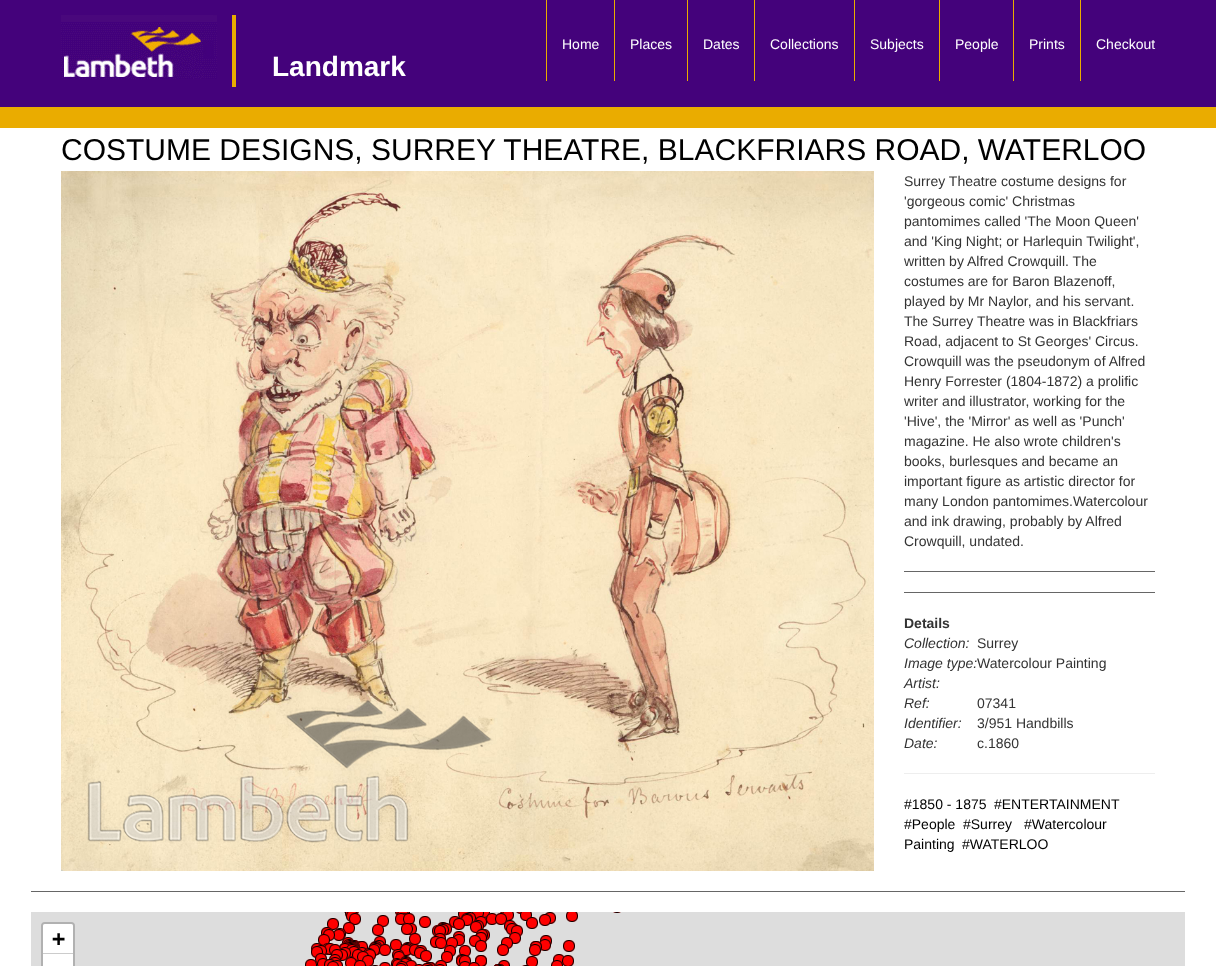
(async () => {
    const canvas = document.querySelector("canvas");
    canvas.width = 1216;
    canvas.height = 966;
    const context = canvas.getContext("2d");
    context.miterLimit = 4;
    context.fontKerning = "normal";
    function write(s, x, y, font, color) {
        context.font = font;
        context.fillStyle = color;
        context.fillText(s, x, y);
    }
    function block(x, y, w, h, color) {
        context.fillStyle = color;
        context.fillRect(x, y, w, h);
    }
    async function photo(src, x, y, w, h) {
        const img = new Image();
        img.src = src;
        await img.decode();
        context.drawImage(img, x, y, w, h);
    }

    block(0, 0, 1216, 966, "rgb(255, 255, 255)");
    block(0, 0, 1216, 107, "rgb(68, 2, 123)");
    block(546, 0, 1, 81, "rgb(234, 172, 0)");
    write("Home", 562, 49, "14px Liberation Sans", "rgb(255, 255, 255)");
    block(614, 0, 1, 81, "rgb(234, 172, 0)");
    write("Places", 630, 49, "14px Liberation Sans", "rgb(255, 255, 255)");
    block(687, 0, 1, 81, "rgb(234, 172, 0)");
    write("Dates", 703, 49, "14px Liberation Sans", "rgb(255, 255, 255)");
    block(754, 0, 1, 81, "rgb(234, 172, 0)");
    write("Collections", 770, 49, "14px Liberation Sans", "rgb(255, 255, 255)");
    block(854, 0, 1, 81, "rgb(234, 172, 0)");
    write("Subjects", 870, 49, "14px Liberation Sans", "rgb(255, 255, 255)");
    block(939, 0, 1, 81, "rgb(234, 172, 0)");
    write("People", 955, 49, "14px Liberation Sans", "rgb(255, 255, 255)");
    block(1013, 0, 1, 81, "rgb(234, 172, 0)");
    write("Prints", 1029, 49, "14px Liberation Sans", "rgb(255, 255, 255)");
    block(1080, 0, 1, 81, "rgb(234, 172, 0)");
    write("Checkout", 1096, 49, "14px Liberation Sans", "rgb(255, 255, 255)");
    await photo("media/1.png", 61, 15, 156, 64);
    block(232, 15, 4, 72, "rgb(234, 172, 0)");
    write("Landmark", 272, 76, "bold 28px Liberation Sans", "rgb(255, 255, 255)");
    block(0, 107, 1216, 21, "rgb(234, 172, 0)");
    write("COSTUME DESIGNS, SURREY THEATRE, BLACKFRIARS ROAD, WATERLOO", 61, 160, "30px Liberation Sans", "rgb(0, 0, 0)");
    await photo("media/2.png", 61, 171, 813, 700);
    write("Surrey Theatre costume designs for", 904, 186, "14px Liberation Sans", "rgb(51, 51, 51)");
    write("'gorgeous comic' Christmas", 904, 206, "14px Liberation Sans", "rgb(51, 51, 51)");
    write("pantomimes called 'The Moon Queen'", 904, 226, "14px Liberation Sans", "rgb(51, 51, 51)");
    write("and 'King Night; or Harlequin Twilight',", 904, 246, "14px Liberation Sans", "rgb(51, 51, 51)");
    write("written by Alfred Crowquill. The", 904, 266, "14px Liberation Sans", "rgb(51, 51, 51)");
    write("costumes are for Baron Blazenoff,", 904, 286, "14px Liberation Sans", "rgb(51, 51, 51)");
    write("played by Mr Naylor, and his servant.", 904, 306, "14px Liberation Sans", "rgb(51, 51, 51)");
    write("The Surrey Theatre was in Blackfriars", 904, 326, "14px Liberation Sans", "rgb(51, 51, 51)");
    write("Road, adjacent to St Georges' Circus.", 904, 346, "14px Liberation Sans", "rgb(51, 51, 51)");
    write("Crowquill was the pseudonym of Alfred", 904, 366, "14px Liberation Sans", "rgb(51, 51, 51)");
    write("Henry Forrester (1804-1872) a prolific", 904, 386, "14px Liberation Sans", "rgb(51, 51, 51)");
    write("writer and illustrator, working for the", 904, 406, "14px Liberation Sans", "rgb(51, 51, 51)");
    write("'Hive', the 'Mirror' as well as 'Punch'", 904, 426, "14px Liberation Sans", "rgb(51, 51, 51)");
    write("magazine. He also wrote children's", 904, 446, "14px Liberation Sans", "rgb(51, 51, 51)");
    write("books, burlesques and became an", 904, 466, "14px Liberation Sans", "rgb(51, 51, 51)");
    write("important figure as artistic director for", 904, 486, "14px Liberation Sans", "rgb(51, 51, 51)");
    write("many London pantomimes.Watercolour", 904, 506, "14px Liberation Sans", "rgb(51, 51, 51)");
    write("and ink drawing, probably by Alfred", 904, 526, "14px Liberation Sans", "rgb(51, 51, 51)");
    write("Crowquill, undated.", 904, 546, "14px Liberation Sans", "rgb(51, 51, 51)");
    block(904, 571, 251, 1, "rgb(102, 102, 102)");
    block(904, 592, 251, 1, "rgb(102, 102, 102)");
    write("Details", 904, 628, "bold 14px Liberation Sans", "rgb(51, 51, 51)");
    write("Collection:", 904, 648, "italic 14px Liberation Sans", "rgb(51, 51, 51)");
    write("Surrey", 977, 648, "14px Liberation Sans", "rgb(51, 51, 51)");
    write("Image type:", 904, 668, "italic 14px Liberation Sans", "rgb(51, 51, 51)");
    write("Watercolour Painting", 977, 668, "14px Liberation Sans", "rgb(51, 51, 51)");
    write("Artist:", 904, 688, "italic 14px Liberation Sans", "rgb(51, 51, 51)");
    write("Ref:", 904, 708, "italic 14px Liberation Sans", "rgb(51, 51, 51)");
    write("07341", 977, 708, "14px Liberation Sans", "rgb(51, 51, 51)");
    write("Identifier:", 904, 728, "italic 14px Liberation Sans", "rgb(51, 51, 51)");
    write("3/951 Handbills", 977, 728, "14px Liberation Sans", "rgb(51, 51, 51)");
    write("Date:", 904, 748, "italic 14px Liberation Sans", "rgb(51, 51, 51)");
    write("c.1860", 977, 748, "14px Liberation Sans", "rgb(51, 51, 51)");
    block(904, 773, 251, 1, "rgb(238, 238, 238)");
    write("#1850 - 1875", 904, 809, "14px Liberation Sans", "rgb(0, 0, 0)");
    write("#ENTERTAINMENT", 994, 809, "14px Liberation Sans", "rgb(0, 0, 0)");
    write("#People", 904, 829, "14px Liberation Sans", "rgb(0, 0, 0)");
    write("#Surrey", 963, 829, "14px Liberation Sans", "rgb(0, 0, 0)");
    write("#Watercolour", 1024, 829, "14px Liberation Sans", "rgb(0, 0, 0)");
    write("Painting", 904, 849, "14px Liberation Sans", "rgb(0, 0, 0)");
    write("#WATERLOO", 962, 849, "14px Liberation Sans", "rgb(0, 0, 0)");
    block(31, 891, 1154, 1, "rgb(102, 102, 102)");
    block(31, 912, 1154, 54, "rgb(221, 221, 221)");
    context.beginPath();
    context.roundRect(42, 923, 32, 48, 3);
    context.strokeStyle = "rgb(177, 177, 177)";
    context.lineWidth = 2;
    context.stroke();
    context.fillStyle = "rgb(255, 255, 255)";
    context.beginPath();
    context.roundRect(43, 924, 30, 30, [2, 2, 0, 0]);
    context.fill();
    block(43, 953, 30, 1, "rgb(204, 204, 204)");
    write("+", 52, 946, "bold 22px DejaVu Sans Mono", "rgb(0, 0, 0)");
    block(43, 954, 30, 12, "rgb(255, 255, 255)");
    await photo("media/3.png", 344, 912, 2, 2);
    await photo("media/6.png", 356, 912, 3, 2);
    await photo("media/4.png", 345, 912, 12, 6);
    await photo("media/5.png", 346, 912, 12, 10);
    await photo("media/7.png", 395, 912, 3, 4);
    await photo("media/9.png", 408, 912, 2, 2);
    await photo("media/8.png", 397, 912, 12, 3);
    await photo("media/10.png", 458, 912, 12, 7);
    await photo("media/13.png", 482, 912, 8, 6);
    await photo("media/12.png", 472, 912, 12, 7);
    await photo("media/11.png", 465, 912, 11, 12);
    await photo("media/14.png", 500, 912, 10, 9);
    await photo("media/15.png", 502, 912, 12, 9);
    await photo("media/16.png", 516, 912, 5, 2);
    await photo("media/17.png", 520, 912, 12, 9);
    await photo("media/18.png", 544, 912, 12, 12);
    await photo("media/19.png", 566, 912, 12, 10);
    await photo("media/20.png", 613, 912, 8, 1);
    await photo("media/21.png", 349, 913, 12, 12);
    await photo("media/24.png", 402, 913, 8, 12);
    await photo("media/23.png", 399, 913, 8, 12);
    await photo("media/22.png", 395, 913, 11, 12);
    await photo("media/25.png", 403, 913, 12, 11);
    await photo("media/26.png", 461, 913, 12, 12);
    await photo("media/27.png", 486, 913, 11, 12);
    await photo("media/28.png", 495, 913, 12, 12);
    await photo("media/18.png", 327, 918, 12, 12);
    await photo("media/18.png", 377, 915, 12, 12);
    await photo("media/18.png", 419, 916, 12, 12);
    await photo("media/29.png", 449, 916, 12, 12);
    await photo("media/30.png", 461, 914, 12, 12);
    await photo("media/31.png", 475, 916, 12, 12);
    await photo("media/32.png", 526, 917, 12, 12);
    await photo("media/33.png", 539, 914, 12, 12);
    await photo("media/34.png", 453, 918, 12, 12);
    await photo("media/35.png", 472, 920, 12, 10);
    await photo("media/36.png", 504, 920, 12, 12);
    await photo("media/37.png", 343, 922, 12, 12);
    await photo("media/41.png", 407, 923, 10, 12);
    await photo("media/38.png", 401, 923, 12, 12);
    await photo("media/39.png", 437, 922, 11, 4);
    await photo("media/40.png", 470, 921, 12, 12);
    await photo("media/42.png", 437, 923, 10, 12);
    await photo("media/43.png", 441, 923, 11, 12);
    await photo("media/48.png", 507, 923, 12, 12);
    await photo("media/44.png", 506, 923, 12, 12);
    await photo("media/45.png", 372, 924, 12, 12);
    await photo("media/47.png", 438, 924, 11, 12);
    await photo("media/46.png", 432, 925, 10, 12);
    await photo("media/49.png", 434, 925, 12, 11);
    await photo("media/50.png", 321, 927, 12, 8);
    await photo("media/51.png", 334, 928, 12, 12);
    await photo("media/52.png", 434, 925, 12, 11);
    await photo("media/53.png", 511, 925, 12, 12);
    await photo("media/55.png", 333, 929, 12, 12);
    await photo("media/54.png", 323, 929, 12, 12);
    await photo("media/58.png", 480, 929, 10, 12);
    await photo("media/56.png", 476, 929, 12, 11);
    await photo("media/57.png", 453, 931, 12, 10);
    await photo("media/59.png", 475, 932, 12, 11);
    await photo("media/60.png", 409, 933, 12, 12);
    await photo("media/61.png", 434, 933, 12, 7);
    await photo("media/62.png", 475, 932, 12, 11);
    await photo("media/63.png", 509, 932, 12, 12);
    await photo("media/64.png", 318, 934, 12, 12);
    await photo("media/65.png", 374, 936, 12, 9);
    await photo("media/66.png", 434, 933, 12, 7);
    await photo("media/67.png", 453, 934, 12, 12);
    await photo("media/68.png", 469, 935, 12, 12);
    await photo("media/69.png", 540, 935, 12, 11);
    await photo("media/70.png", 342, 937, 12, 7);
    await photo("media/71.png", 430, 936, 11, 12);
    await photo("media/72.png", 343, 939, 11, 5);
    await photo("media/18.png", 390, 939, 12, 12);
    await photo("media/73.png", 435, 937, 12, 12);
    await photo("media/74.png", 446, 937, 12, 12);
    await photo("media/75.png", 501, 937, 12, 12);
    await photo("media/76.png", 539, 939, 12, 12);
    await photo("media/78.png", 350, 940, 9, 2);
    await photo("media/79.png", 350, 940, 9, 3);
    await photo("media/77.png", 344, 940, 11, 4);
    await photo("media/80.png", 374, 940, 11, 6);
    await photo("media/81.png", 475, 940, 12, 12);
    await photo("media/18.png", 563, 940, 12, 12);
    await photo("media/84.png", 350, 941, 8, 2);
    await photo("media/82.png", 345, 941, 10, 3);
    await photo("media/85.png", 357, 941, 10, 3);
    await photo("media/86.png", 357, 941, 11, 8);
    await photo("media/83.png", 349, 941, 11, 7);
    await photo("media/87.png", 370, 941, 12, 5);
    await photo("media/88.png", 530, 941, 12, 11);
    await photo("media/89.png", 344, 942, 9, 2);
    await photo("media/90.png", 530, 941, 12, 11);
    await photo("media/94.png", 347, 942, 8, 1);
    await photo("media/102.png", 350, 942, 10, 6);
    await photo("media/91.png", 344, 942, 9, 2);
    await photo("media/99.png", 348, 942, 8, 1);
    await photo("media/101.png", 349, 942, 10, 3);
    await photo("media/105.png", 350, 942, 10, 6);
    await photo("media/95.png", 347, 942, 9, 2);
    await photo("media/96.png", 347, 942, 9, 2);
    await photo("media/97.png", 347, 942, 9, 2);
    await photo("media/98.png", 347, 942, 9, 2);
    await photo("media/92.png", 344, 942, 9, 2);
    await photo("media/100.png", 348, 942, 10, 3);
    await photo("media/93.png", 345, 942, 10, 2);
    await photo("media/103.png", 311, 943, 12, 10);
    await photo("media/104.png", 322, 943, 10, 12);
    await photo("media/106.png", 369, 942, 12, 5);
    await photo("media/107.png", 402, 942, 12, 12);
    await photo("media/108.png", 324, 943, 11, 12);
    await photo("media/120.png", 350, 943, 10, 5);
    await photo("media/118.png", 349, 943, 10, 3);
    await photo("media/115.png", 348, 943, 8, 1);
    await photo("media/122.png", 350, 943, 10, 6);
    await photo("media/113.png", 347, 943, 8, 1);
    await photo("media/116.png", 348, 943, 10, 3);
    await photo("media/119.png", 349, 943, 10, 6);
    await photo("media/112.png", 346, 943, 8, 1);
    await photo("media/117.png", 348, 943, 10, 4);
    await photo("media/114.png", 347, 943, 10, 3);
    await photo("media/109.png", 339, 943, 11, 4);
    await photo("media/110.png", 339, 943, 11, 4);
    await photo("media/111.png", 339, 943, 11, 7);
    await photo("media/121.png", 329, 944, 12, 12);
    await photo("media/123.png", 370, 943, 12, 12);
    await photo("media/124.png", 401, 943, 11, 12);
    await photo("media/126.png", 347, 944, 12, 5);
    await photo("media/125.png", 346, 944, 12, 5);
    await photo("media/127.png", 368, 944, 12, 12);
    await photo("media/128.png", 379, 944, 12, 12);
    await photo("media/129.png", 400, 944, 11, 12);
    await photo("media/130.png", 316, 945, 11, 11);
    await photo("media/131.png", 400, 944, 11, 12);
    await photo("media/132.png", 409, 944, 11, 12);
    await photo("media/133.png", 415, 945, 12, 6);
    await photo("media/134.png", 444, 945, 12, 12);
    await photo("media/135.png", 459, 945, 12, 12);
    await photo("media/136.png", 497, 944, 12, 12);
    await photo("media/137.png", 529, 944, 12, 12);
    await photo("media/138.png", 311, 946, 12, 12);
    await photo("media/141.png", 348, 946, 11, 12);
    await photo("media/140.png", 339, 947, 12, 12);
    await photo("media/145.png", 338, 949, 10, 12);
    await photo("media/139.png", 331, 949, 12, 12);
    await photo("media/142.png", 356, 947, 11, 5);
    await photo("media/143.png", 363, 948, 12, 4);
    await photo("media/144.png", 414, 947, 12, 12);
    await photo("media/146.png", 352, 949, 12, 12);
    await photo("media/147.png", 364, 949, 12, 12);
    await photo("media/148.png", 392, 949, 12, 11);
    await photo("media/149.png", 420, 950, 12, 12);
    await photo("media/150.png", 315, 953, 12, 12);
    await photo("media/151.png", 329, 954, 12, 8);
    await photo("media/152.png", 357, 951, 12, 10);
    await photo("media/153.png", 393, 951, 12, 9);
    await photo("media/154.png", 441, 951, 12, 12);
    await photo("media/155.png", 456, 954, 11, 12);
    await photo("media/18.png", 553, 954, 12, 12);
    await photo("media/156.png", 362, 955, 12, 11);
    await photo("media/157.png", 456, 955, 10, 11);
    await photo("media/158.png", 459, 955, 12, 10);
    await photo("media/69.png", 475, 955, 12, 11);
    await photo("media/159.png", 329, 957, 12, 5);
    await photo("media/160.png", 345, 957, 12, 9);
    await photo("media/161.png", 400, 956, 12, 5);
    await photo("media/162.png", 475, 955, 12, 11);
    await photo("media/57.png", 526, 956, 12, 10);
    await photo("media/163.png", 562, 955, 12, 11);
    await photo("media/164.png", 317, 958, 11, 8);
    await photo("media/166.png", 400, 957, 12, 4);
    await photo("media/167.png", 400, 958, 11, 3);
    await photo("media/170.png", 400, 958, 11, 5);
    await photo("media/165.png", 391, 958, 12, 8);
    await photo("media/168.png", 305, 959, 12, 7);
    await photo("media/169.png", 324, 959, 11, 7);
    await photo("media/171.png", 324, 959, 11, 5);
    await photo("media/172.png", 332, 960, 11, 6);
    await photo("media/173.png", 354, 960, 12, 6);
    await photo("media/174.png", 392, 959, 12, 7);
    await photo("media/175.png", 405, 960, 12, 6);
    await photo("media/176.png", 435, 960, 12, 6);
    await photo("media/177.png", 498, 960, 12, 6);
    await photo("media/178.png", 551, 960, 12, 6);
    await photo("media/179.png", 327, 961, 12, 5);
    await photo("media/180.png", 379, 962, 12, 4);
    await photo("media/181.png", 396, 961, 12, 5);
    await photo("media/182.png", 423, 962, 12, 3);
    await photo("media/183.png", 459, 961, 12, 5);
    await photo("media/184.png", 425, 962, 11, 4);
    await photo("media/185.png", 425, 962, 11, 4);
    await photo("media/186.png", 395, 963, 12, 3);
    await photo("media/187.png", 425, 962, 11, 4);
    await photo("media/188.png", 468, 962, 12, 4);
    await photo("media/189.png", 422, 963, 12, 3);
    await photo("media/191.png", 422, 963, 11, 3);
    await photo("media/190.png", 414, 964, 10, 2);
    await photo("media/192.png", 435, 964, 10, 2);
    await photo("media/193.png", 494, 964, 10, 2);
    await photo("media/194.png", 494, 964, 10, 2);
    await photo("media/195.png", 494, 964, 10, 2);
    await photo("media/196.png", 494, 964, 10, 2);
    await photo("media/197.png", 494, 964, 10, 2);
    await photo("media/198.png", 494, 964, 10, 2);
    await photo("media/199.png", 494, 964, 9, 2);
    await photo("media/200.png", 495, 964, 8, 1);
    await photo("media/201.png", 371, 965, 8, 1);
    await photo("media/202.png", 424, 965, 8, 1);
    await photo("media/203.png", 497, 965, 6, 1);
    await photo("media/204.png", 522, 965, 8, 1);
})();
